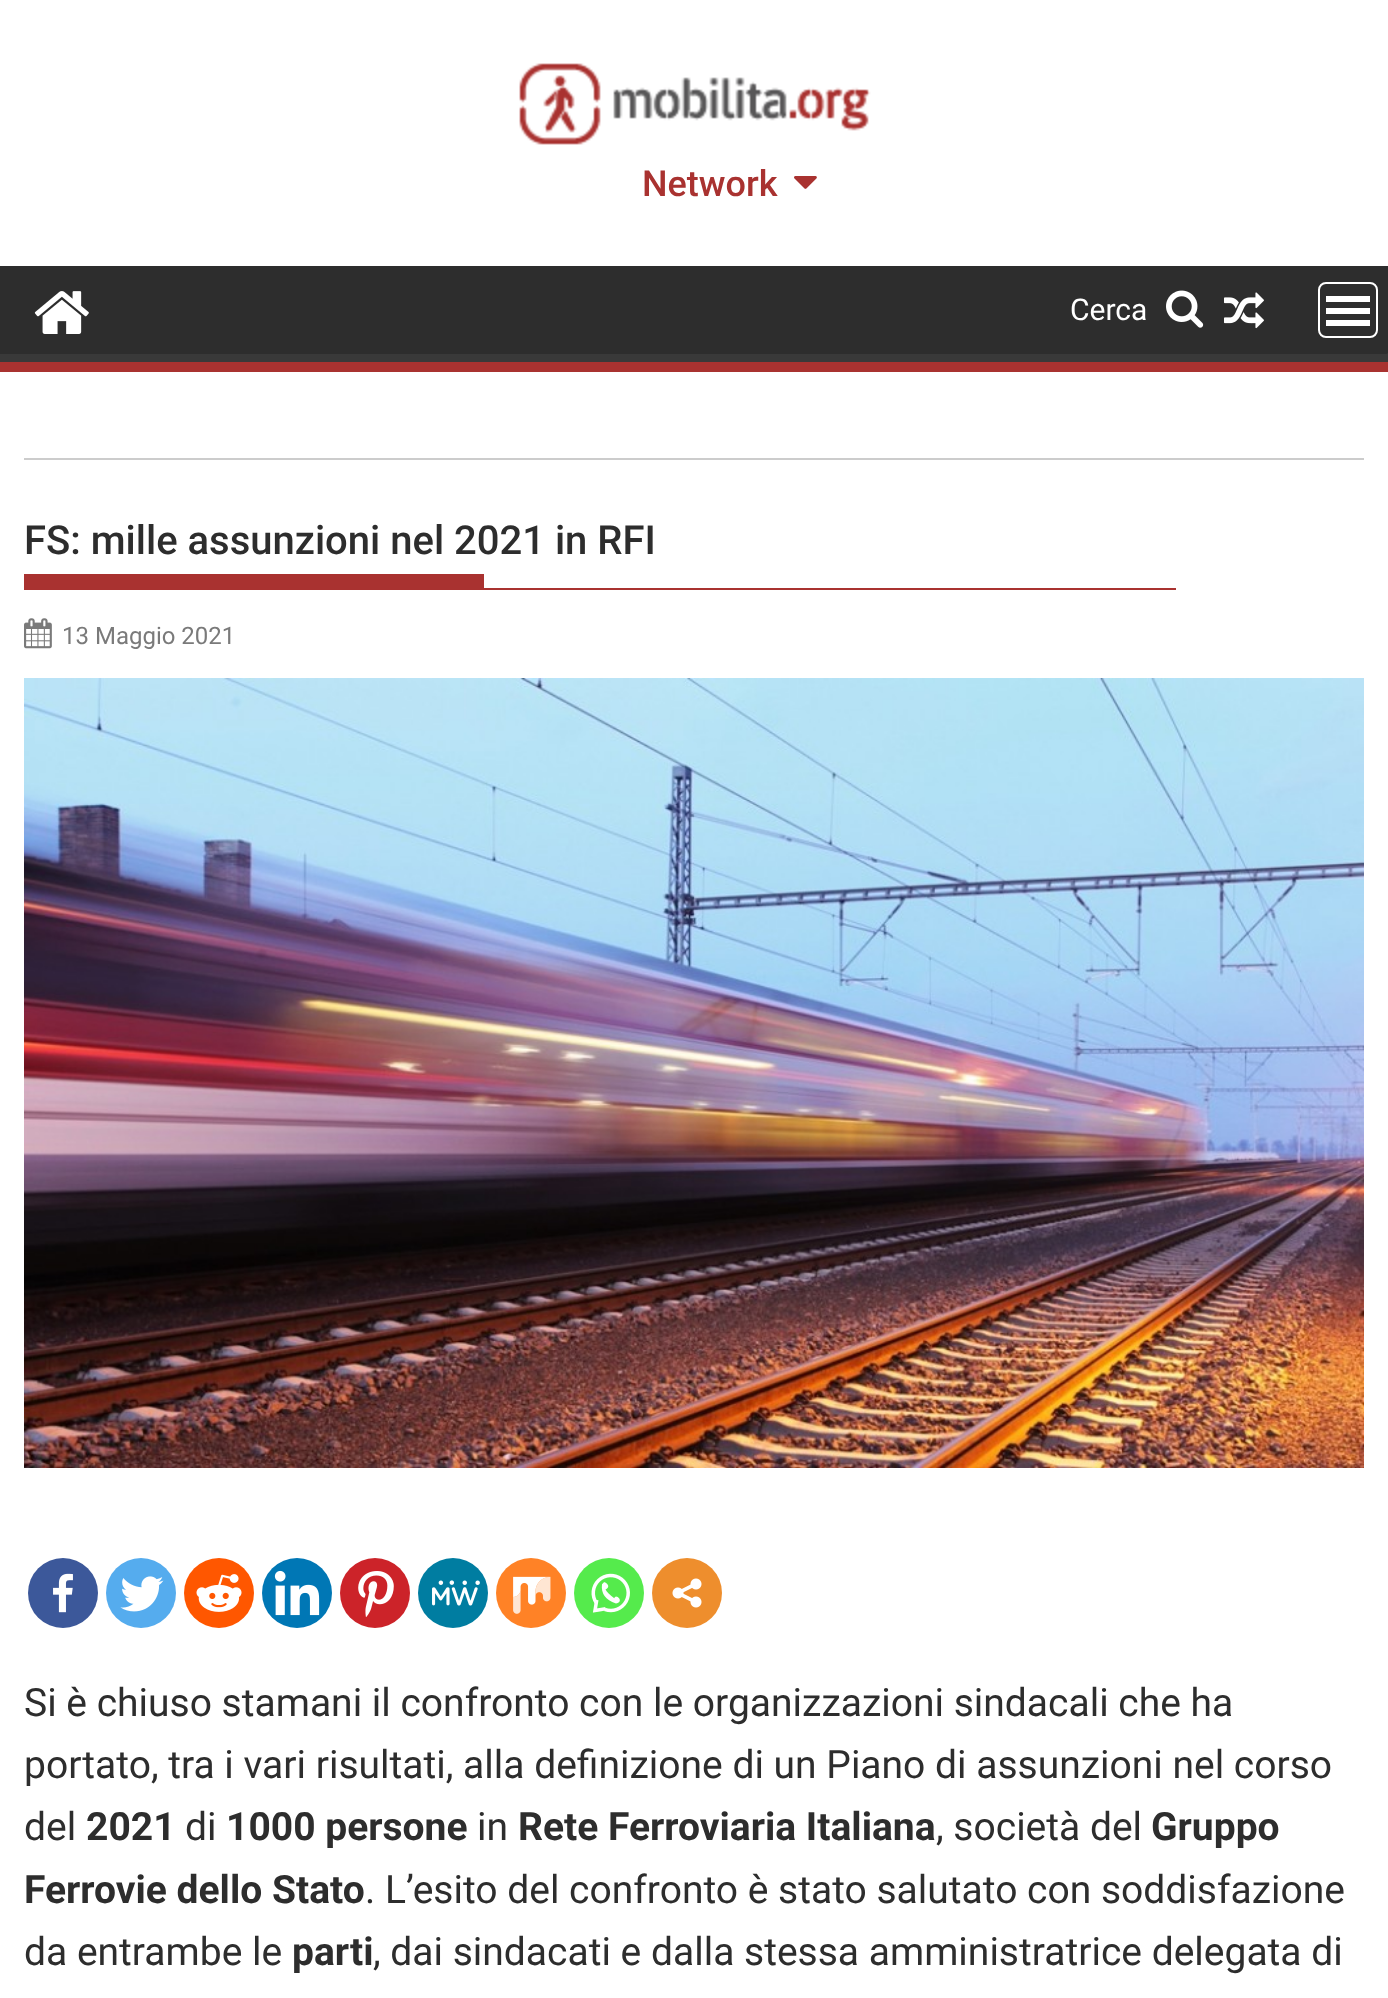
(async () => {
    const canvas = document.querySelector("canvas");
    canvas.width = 1388;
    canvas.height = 1998;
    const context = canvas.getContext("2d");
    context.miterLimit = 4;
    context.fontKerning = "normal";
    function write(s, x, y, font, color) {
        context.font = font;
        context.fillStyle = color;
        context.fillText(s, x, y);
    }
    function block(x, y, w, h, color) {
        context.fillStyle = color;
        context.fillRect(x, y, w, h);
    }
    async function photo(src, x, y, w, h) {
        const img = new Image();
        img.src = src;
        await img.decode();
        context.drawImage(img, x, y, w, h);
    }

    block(0, 0, 1388, 1998, "rgb(255, 255, 255)");
    await photo("media/1.png", 519, 63, 352, 82);
    write("Network", 642, 196, "500 36px Roboto", "rgb(169, 50, 48)");
    await photo("media/2.png", 794, 176, 23, 13);
    block(0, 266, 1388, 88, "rgb(45, 45, 45)");
    context.save();
    context.beginPath();
    context.rect(0, 266, 1388, 96);
    context.clip();
    context.fillStyle = "rgb(57, 57, 57)";
    context.beginPath();
    context.moveTo(-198, 68);
    context.lineTo(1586, 68);
    context.lineTo(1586, 560);
    context.lineTo(-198, 560);
    context.closePath();
    context.moveTo(-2, 254);
    context.lineTo(1386, 254);
    context.bezierCurveTo(1387, 254, 1388, 255, 1388, 256);
    context.lineTo(1388, 352);
    context.bezierCurveTo(1388, 353, 1387, 354, 1386, 354);
    context.lineTo(-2, 354);
    context.bezierCurveTo(-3, 354, -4, 353, -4, 352);
    context.lineTo(-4, 256);
    context.bezierCurveTo(-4, 255, -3, 254, -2, 254);
    context.closePath();
    context.fill("evenodd");
    context.restore();
    block(0, 362, 1388, 10, "rgb(169, 50, 48)");
    await photo("media/3.png", 34, 291, 55, 43);
    write("Cerca", 1070, 320, "30px Roboto", "rgb(255, 255, 255)");
    await photo("media/4.png", 1166, 290, 38, 38);
    await photo("media/5.png", 1224, 292, 40, 37);
    context.beginPath();
    context.roundRect(1319, 283, 58, 54, 7);
    context.strokeStyle = "rgb(255, 255, 255)";
    context.lineWidth = 2;
    context.stroke();
    block(1326, 320, 44, 6, "rgb(255, 255, 255)");
    block(1326, 308, 44, 6, "rgb(255, 255, 255)");
    block(1326, 296, 44, 6, "rgb(255, 255, 255)");
    block(24, 458, 1340, 2, "rgb(204, 204, 204)");
    block(24, 588, 1152, 2, "rgb(169, 50, 48)");
    write("FS: mille assunzioni nel 2021 in RFI", 24, 554, "500 40px Roboto", "rgb(45, 45, 45)");
    block(24, 574, 460, 14, "rgb(169, 50, 48)");
    await photo("media/6.png", 24, 618, 28, 31);
    write("13 Maggio 2021", 62, 644, "24px Roboto", "rgb(122, 122, 122)");
    await photo("media/7.png", 24, 678, 1340, 790);
    context.fillStyle = "rgb(60, 88, 154)";
    context.beginPath();
    context.arc(63, 1593, 35, 0, Math.PI * 2);
    context.fill();
    await photo("media/8.png", 53, 1573, 20, 40);
    context.fillStyle = "rgb(85, 172, 238)";
    context.beginPath();
    context.arc(141, 1593, 35, 0, Math.PI * 2);
    context.fill();
    await photo("media/9.png", 120, 1576, 44, 36);
    context.fillStyle = "rgb(255, 87, 0)";
    context.beginPath();
    context.arc(219, 1593, 35, 0, Math.PI * 2);
    context.fill();
    await photo("media/10.png", 196, 1574, 46, 38);
    context.fillStyle = "rgb(0, 119, 181)";
    context.beginPath();
    context.arc(297, 1593, 35, 0, Math.PI * 2);
    context.fill();
    await photo("media/11.png", 274, 1570, 46, 46);
    context.fillStyle = "rgb(204, 35, 41)";
    context.beginPath();
    context.arc(375, 1593, 35, 0, Math.PI * 2);
    context.fill();
    await photo("media/12.png", 358, 1571, 36, 46);
    context.fillStyle = "rgb(0, 125, 161)";
    context.beginPath();
    context.arc(453, 1593, 35, 0, Math.PI * 2);
    context.fill();
    await photo("media/13.png", 432, 1580, 48, 26);
    context.fillStyle = "rgb(255, 130, 38)";
    context.beginPath();
    context.arc(531, 1593, 35, 0, Math.PI * 2);
    context.fill();
    await photo("media/14.png", 513, 1576, 38, 38);
    context.fillStyle = "rgb(85, 235, 76)";
    context.beginPath();
    context.arc(609, 1593, 35, 0, Math.PI * 2);
    context.fill();
    await photo("media/15.png", 591, 1573, 39, 40);
    context.fillStyle = "rgb(238, 142, 45)";
    context.beginPath();
    context.arc(687, 1593, 35, 0, Math.PI * 2);
    context.fill();
    await photo("media/16.png", 672, 1578, 30, 30);
    write("Si è chiuso stamani il confronto con le organizzazioni sindacali che ha", 24, 1716, "39px Roboto", "rgb(45, 45, 45)");
    write("portato, tra i vari risultati, alla definizione di un Piano di assunzioni nel corso", 24, 1778, "39px Roboto", "rgb(45, 45, 45)");
    write("del", 24, 1840, "39px Roboto", "rgb(45, 45, 45)");
    write("2021", 86, 1840, "bold 39px Roboto", "rgb(45, 45, 45)");
    write("di", 185, 1840, "39px Roboto", "rgb(45, 45, 45)");
    write("1000 persone", 226, 1840, "bold 39px Roboto", "rgb(45, 45, 45)");
    write("in", 477, 1840, "39px Roboto", "rgb(45, 45, 45)");
    write("Rete Ferroviaria Italiana", 518, 1840, "bold 39px Roboto", "rgb(45, 45, 45)");
    write(", società del", 936, 1840, "39px Roboto", "rgb(45, 45, 45)");
    write("Gruppo", 1151, 1840, "bold 39px Roboto", "rgb(45, 45, 45)");
    write("Ferrovie dello Stato", 24, 1903, "bold 39px Roboto", "rgb(45, 45, 45)");
    write(". L’esito del confronto è stato salutato con soddisfazione", 365, 1903, "39px Roboto", "rgb(45, 45, 45)");
    write("da entrambe le", 24, 1965, "39px Roboto", "rgb(45, 45, 45)");
    write("parti", 292, 1965, "bold 39px Roboto", "rgb(45, 45, 45)");
    write(", dai sindacati e dalla stessa amministratrice delegata di", 373, 1965, "39px Roboto", "rgb(45, 45, 45)");
})();
